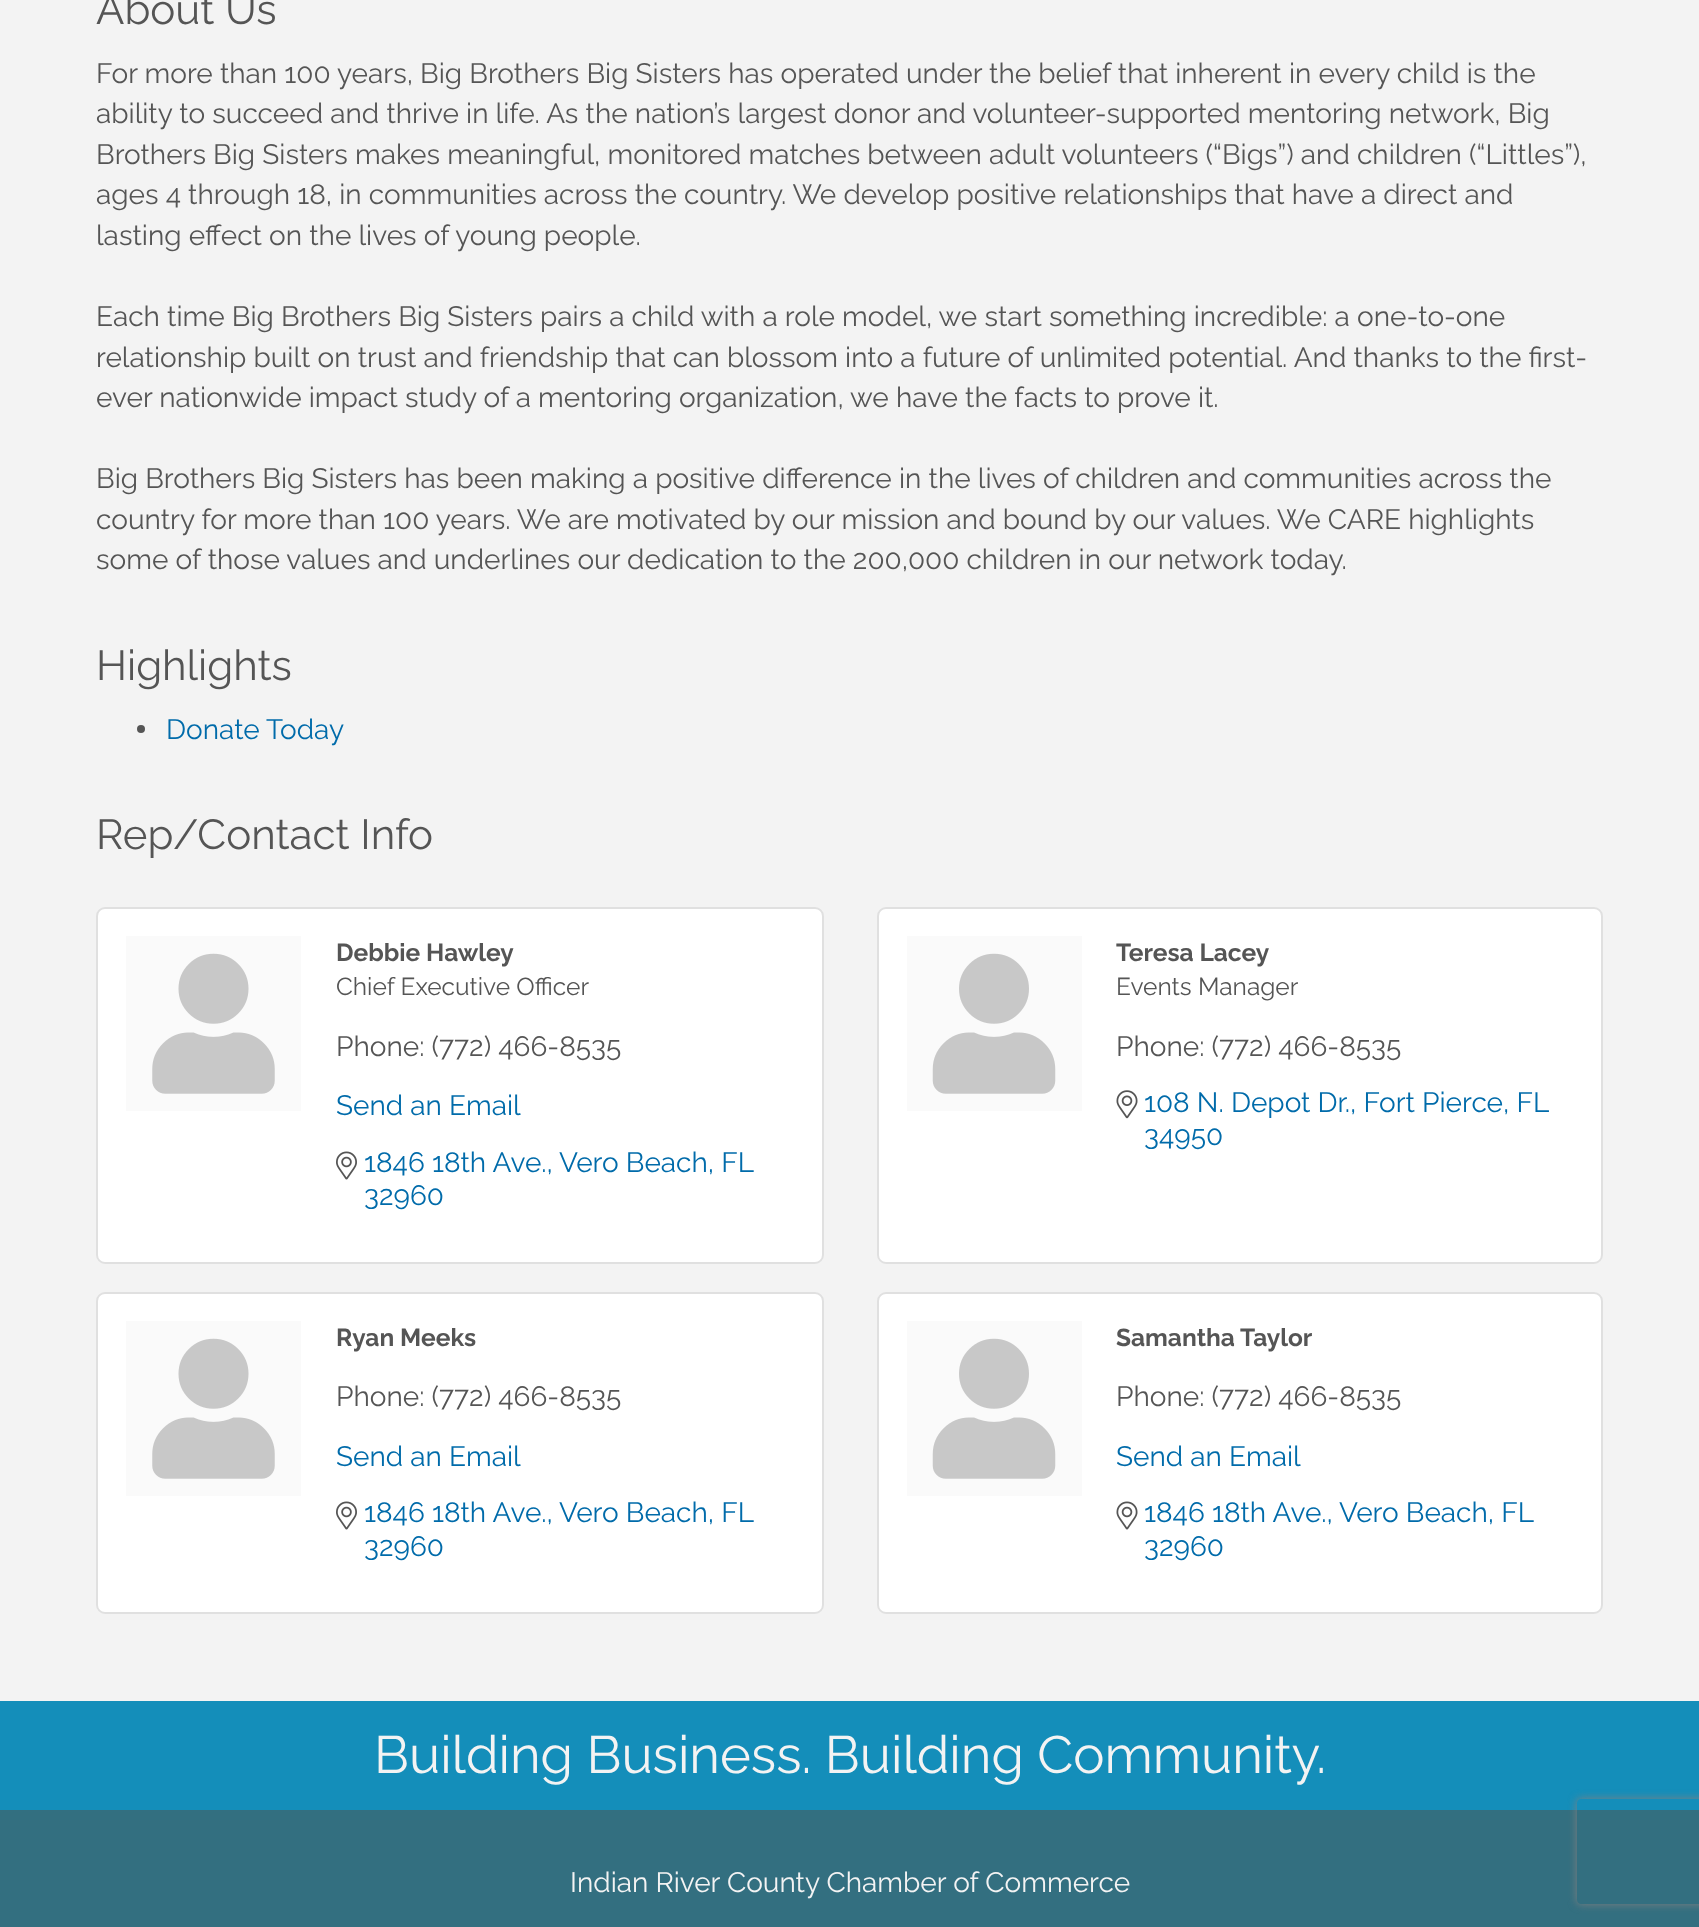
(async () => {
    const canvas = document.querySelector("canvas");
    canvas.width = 1699;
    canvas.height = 1927;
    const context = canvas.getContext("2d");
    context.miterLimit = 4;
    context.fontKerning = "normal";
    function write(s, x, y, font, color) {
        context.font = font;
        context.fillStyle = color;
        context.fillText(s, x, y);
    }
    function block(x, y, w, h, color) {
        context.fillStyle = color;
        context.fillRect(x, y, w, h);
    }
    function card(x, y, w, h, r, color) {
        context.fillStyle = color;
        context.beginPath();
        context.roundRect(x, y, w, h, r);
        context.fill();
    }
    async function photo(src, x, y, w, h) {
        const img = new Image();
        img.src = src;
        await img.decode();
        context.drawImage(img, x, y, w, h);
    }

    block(0, 0, 1699, 1927, "rgb(243, 243, 243)");
    write("About Us", 96, 24, "42px Raleway", "rgb(85, 85, 85)");
    write("For more than 100 years, Big Brothers Big Sisters has operated under the belief that inherent in every child is the", 96, 83, "28px Raleway", "rgb(85, 85, 85)");
    write("ability to succeed and thrive in life. As the nation’s largest donor and volunteer-supported mentoring network, Big", 96, 123, "28px Raleway", "rgb(85, 85, 85)");
    write("Brothers Big Sisters makes meaningful, monitored matches between adult volunteers (“Bigs”) and children (“Littles”),", 96, 164, "28px Raleway", "rgb(85, 85, 85)");
    write("ages 4 through 18, in communities across the country. We develop positive relationships that have a direct and", 96, 204, "28px Raleway", "rgb(85, 85, 85)");
    write("lasting effect on the lives of young people.", 96, 245, "28px Raleway", "rgb(85, 85, 85)");
    write("Each time Big Brothers Big Sisters pairs a child with a role model, we start something incredible: a one-to-one", 96, 326, "28px Raleway", "rgb(85, 85, 85)");
    write("relationship built on trust and friendship that can blossom into a future of unlimited potential. And thanks to the first-", 96, 367, "28px Raleway", "rgb(85, 85, 85)");
    write("ever nationwide impact study of a mentoring organization, we have the facts to prove it.", 96, 407, "28px Raleway", "rgb(85, 85, 85)");
    write("Big Brothers Big Sisters has been making a positive difference in the lives of children and communities across the", 96, 488, "28px Raleway", "rgb(85, 85, 85)");
    write("country for more than 100 years. We are motivated by our mission and bound by our values. We CARE highlights", 96, 529, "28px Raleway", "rgb(85, 85, 85)");
    write("some of those values and underlines our dedication to the 200,000 children in our network today.", 96, 569, "28px Raleway", "rgb(85, 85, 85)");
    write("Highlights", 96, 680, "42px Raleway", "rgb(85, 85, 85)");
    context.beginPath();
    context.arc(141, 729, 4, 0, Math.PI * 2);
    context.fill();
    write("Donate Today", 166, 739, "28px Raleway", "rgb(0, 107, 170)");
    write("Rep/Contact Info", 96, 849, "42px Raleway", "rgb(85, 85, 85)");
    card(96, 907, 728, 357, 9, "rgb(255, 255, 255)");
    context.beginPath();
    context.roundRect(97, 908, 726, 355, 8);
    context.strokeStyle = "rgba(0, 0, 0, 0.12)";
    context.lineWidth = 2;
    context.stroke();
    block(126, 936, 175, 175, "rgb(250, 250, 250)");
    await photo("media/1.png", 152, 953, 123, 141);
    write("Debbie Hawley", 336, 961, "bold 24.5px Raleway", "rgb(85, 85, 85)");
    write("Chief Executive Officer", 336, 995, "24.5px Raleway", "rgb(85, 85, 85)");
    write("Phone: (772) 466-8535", 336, 1056, "28px Raleway", "rgb(85, 85, 85)");
    write("Send an Email", 336, 1115, "28px Raleway", "rgb(0, 107, 170)");
    await photo("media/2.png", 336, 1151, 21, 29);
    write("1846 18th Ave.,", 364, 1172, "28px Raleway", "rgb(0, 107, 170)");
    write("Vero Beach, FL", 559, 1172, "28px Raleway", "rgb(0, 107, 170)");
    write("32960", 364, 1205, "28px Raleway", "rgb(0, 107, 170)");
    card(877, 907, 726, 357, 9, "rgb(255, 255, 255)");
    context.beginPath();
    context.roundRect(878, 908, 724, 355, 8);
    context.stroke();
    block(907, 936, 175, 175, "rgb(250, 250, 250)");
    await photo("media/3.png", 932, 953, 124, 141);
    write("Teresa Lacey", 1116, 961, "bold 24.5px Raleway", "rgb(85, 85, 85)");
    write("Events Manager", 1116, 995, "24.5px Raleway", "rgb(85, 85, 85)");
    write("Phone: (772) 466-8535", 1116, 1056, "28px Raleway", "rgb(85, 85, 85)");
    await photo("media/4.png", 1116, 1090, 22, 29);
    write("108 N. Depot Dr., Fort Pierce, FL", 1144, 1112, "28px Raleway", "rgb(0, 107, 170)");
    write("34950", 1144, 1145, "28px Raleway", "rgb(0, 107, 170)");
    card(96, 1292, 728, 322, 9, "rgb(255, 255, 255)");
    context.beginPath();
    context.roundRect(97, 1293, 726, 320, 8);
    context.stroke();
    block(126, 1321, 175, 175, "rgb(250, 250, 250)");
    await photo("media/1.png", 152, 1338, 123, 141);
    write("Ryan Meeks", 336, 1346, "bold 24.5px Raleway", "rgb(85, 85, 85)");
    write("Phone: (772) 466-8535", 336, 1406, "28px Raleway", "rgb(85, 85, 85)");
    write("Send an Email", 336, 1466, "28px Raleway", "rgb(0, 107, 170)");
    await photo("media/2.png", 336, 1501, 21, 29);
    write("1846 18th Ave.,", 364, 1522, "28px Raleway", "rgb(0, 107, 170)");
    write("Vero Beach, FL", 559, 1522, "28px Raleway", "rgb(0, 107, 170)");
    write("32960", 364, 1556, "28px Raleway", "rgb(0, 107, 170)");
    card(877, 1292, 726, 322, 9, "rgb(255, 255, 255)");
    context.beginPath();
    context.roundRect(878, 1293, 724, 320, 8);
    context.stroke();
    block(907, 1321, 175, 175, "rgb(250, 250, 250)");
    await photo("media/3.png", 932, 1338, 124, 141);
    write("Samantha Taylor", 1116, 1346, "bold 24.5px Raleway", "rgb(85, 85, 85)");
    write("Phone: (772) 466-8535", 1116, 1406, "28px Raleway", "rgb(85, 85, 85)");
    write("Send an Email", 1116, 1466, "28px Raleway", "rgb(0, 107, 170)");
    await photo("media/5.png", 1116, 1501, 22, 29);
    write("1846 18th Ave.,", 1144, 1522, "28px Raleway", "rgb(0, 107, 170)");
    write("Vero Beach, FL", 1339, 1522, "28px Raleway", "rgb(0, 107, 170)");
    write("32960", 1144, 1556, "28px Raleway", "rgb(0, 107, 170)");
    block(0, 1701, 1699, 109, "rgb(20, 142, 186)");
    write("Building Business. Building Community.", 374, 1773, "52.5px Raleway", "rgb(243, 243, 243)");
    block(0, 1810, 1699, 117, "rgb(51, 111, 128)");
    write("Indian River County Chamber of Commerce", 570, 1892, "28px Raleway", "rgb(243, 243, 243)");
    context.save();
    context.beginPath();
    context.moveTo(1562, 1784);
    context.lineTo(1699, 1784);
    context.lineTo(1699, 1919);
    context.lineTo(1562, 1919);
    context.closePath();
    context.moveTo(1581, 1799);
    context.lineTo(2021, 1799);
    context.bezierCurveTo(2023, 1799, 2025, 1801, 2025, 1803);
    context.lineTo(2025, 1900);
    context.bezierCurveTo(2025, 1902, 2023, 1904, 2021, 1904);
    context.lineTo(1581, 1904);
    context.bezierCurveTo(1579, 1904, 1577, 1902, 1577, 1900);
    context.lineTo(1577, 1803);
    context.bezierCurveTo(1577, 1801, 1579, 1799, 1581, 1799);
    context.closePath();
    context.clip("evenodd");
    context.fillStyle = "rgb(128, 128, 128)";
    context.filter = "blur(4.5px)";
    context.beginPath();
    context.roundRect(1577, 1799, 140, 105, 4);
    context.fill();
    context.filter = "none";
    context.restore();
})();
